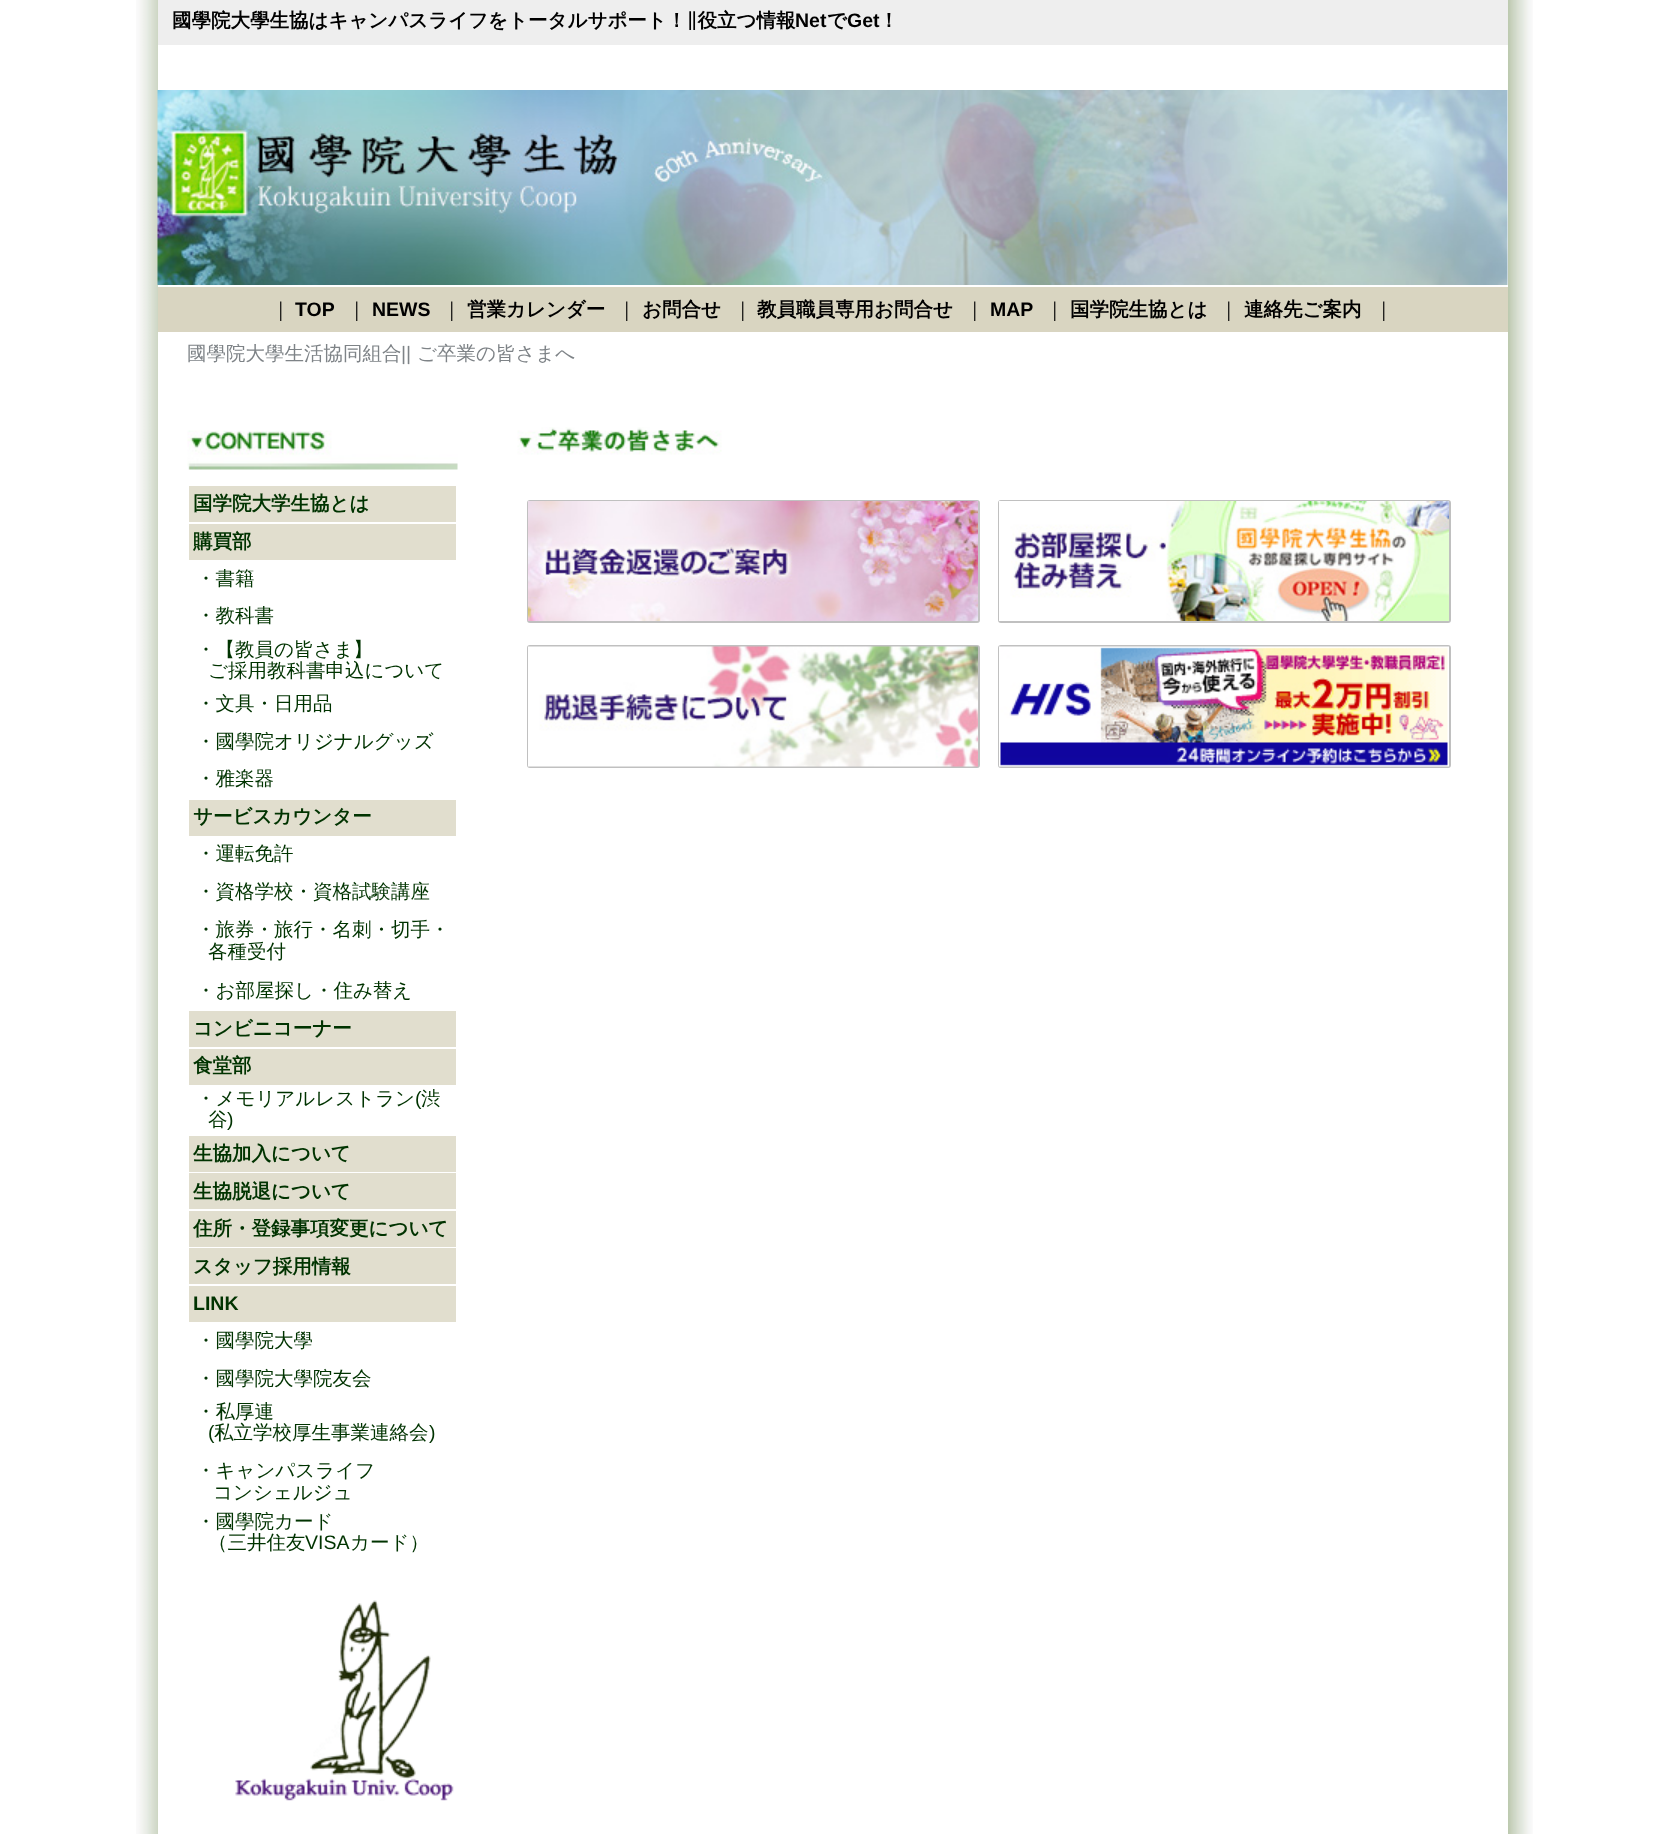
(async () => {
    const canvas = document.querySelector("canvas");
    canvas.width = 1663;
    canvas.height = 1834;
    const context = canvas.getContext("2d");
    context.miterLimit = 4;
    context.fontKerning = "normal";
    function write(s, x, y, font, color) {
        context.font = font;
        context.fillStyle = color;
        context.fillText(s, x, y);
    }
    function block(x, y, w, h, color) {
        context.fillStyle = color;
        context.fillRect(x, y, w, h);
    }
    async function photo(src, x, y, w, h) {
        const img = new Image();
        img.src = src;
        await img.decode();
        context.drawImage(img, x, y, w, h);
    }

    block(0, 0, 1663, 1834, "rgb(255, 255, 255)");
    await photo("media/1.png", 136, 0, 1397, 1834);
    block(158, 45, 1350, 242, "rgb(255, 255, 255)");
    block(158, 0, 1350, 45, "rgb(238, 238, 238)");
    write("國學院大學生協はキャンパスライフをトータルサポート！∥役立つ情報", 172, 27, "bold 19.5px WenQuanYi Zen Hei", "rgb(0, 0, 0)");
    write("Net", 795, 27, "bold 19.5px Liberation Sans", "rgb(0, 0, 0)");
    write("で", 827, 27, "bold 19.5px WenQuanYi Zen Hei", "rgb(0, 0, 0)");
    write("Get", 847, 27, "bold 19.5px Liberation Sans", "rgb(0, 0, 0)");
    write("！", 879, 27, "bold 19.5px WenQuanYi Zen Hei", "rgb(0, 0, 0)");
    await photo("media/2.png", 157, 90, 1351, 195);
    block(158, 287, 1350, 45, "rgb(217, 213, 193)");
    write("｜", 271, 316, "500 19.5px WenQuanYi Zen Hei", "rgb(0, 0, 0)");
    write("TOP", 295, 316, "bold 19.5px Liberation Sans", "rgb(0, 0, 0)");
    write("｜", 347, 316, "500 19.5px WenQuanYi Zen Hei", "rgb(0, 0, 0)");
    write("NEWS", 372, 316, "bold 19.5px Liberation Sans", "rgb(0, 0, 0)");
    write("｜", 442, 316, "500 19.5px WenQuanYi Zen Hei", "rgb(0, 0, 0)");
    write("営業カレンダー", 467, 316, "bold 19.5px WenQuanYi Zen Hei", "rgb(0, 0, 0)");
    write("｜", 617, 316, "500 19.5px WenQuanYi Zen Hei", "rgb(0, 0, 0)");
    write("お問合せ", 642, 316, "bold 19.5px WenQuanYi Zen Hei", "rgb(0, 0, 0)");
    write("｜", 733, 316, "500 19.5px WenQuanYi Zen Hei", "rgb(0, 0, 0)");
    write("教員職員専用お問合せ", 757, 316, "bold 19.5px WenQuanYi Zen Hei", "rgb(0, 0, 0)");
    write("｜", 965, 316, "500 19.5px WenQuanYi Zen Hei", "rgb(0, 0, 0)");
    write("MAP", 990, 316, "bold 19.5px Liberation Sans", "rgb(0, 0, 0)");
    write("｜", 1045, 316, "500 19.5px WenQuanYi Zen Hei", "rgb(0, 0, 0)");
    write("国学院生協とは", 1070, 316, "bold 19.5px WenQuanYi Zen Hei", "rgb(0, 0, 0)");
    write("｜", 1219, 316, "500 19.5px WenQuanYi Zen Hei", "rgb(0, 0, 0)");
    write("連絡先ご案内", 1244, 316, "bold 19.5px WenQuanYi Zen Hei", "rgb(0, 0, 0)");
    write("｜", 1374, 316, "500 19.5px WenQuanYi Zen Hei", "rgb(0, 0, 0)");
    block(158, 332, 1350, 1502, "rgb(255, 255, 255)");
    write("國學院大學生活協同組合", 187, 360, "500 19.5px WenQuanYi Zen Hei", "rgb(126, 131, 135)");
    write("||", 401, 360, "19.5px Liberation Sans", "rgb(126, 131, 135)");
    write("ご卒業の皆さまへ", 417, 360, "500 19.5px WenQuanYi Zen Hei", "rgb(126, 131, 135)");
    await photo("media/3.png", 187, 430, 271, 40);
    await photo("media/4.png", 517, 427, 205, 28);
    block(189, 486, 267, 36, "rgb(225, 222, 206)");
    write("国学院大学生協とは", 193, 510, "bold 19.5px WenQuanYi Zen Hei", "rgb(0, 51, 0)");
    block(189, 524, 267, 36, "rgb(225, 222, 206)");
    write("購買部", 193, 548, "bold 19.5px WenQuanYi Zen Hei", "rgb(0, 51, 0)");
    write("・書籍", 196, 585, "500 19.5px WenQuanYi Zen Hei", "rgb(0, 51, 0)");
    write("・教科書", 196, 622, "500 19.5px WenQuanYi Zen Hei", "rgb(0, 51, 0)");
    write("・【教員の皆さま】", 196, 656, "500 19.5px WenQuanYi Zen Hei", "rgb(0, 51, 0)");
    write("ご採用教科書申込について", 208, 677, "500 19.5px WenQuanYi Zen Hei", "rgb(0, 51, 0)");
    write("・文具・日用品", 196, 710, "500 19.5px WenQuanYi Zen Hei", "rgb(0, 51, 0)");
    write("・國學院オリジナルグッズ", 196, 748, "500 19.5px WenQuanYi Zen Hei", "rgb(0, 51, 0)");
    write("・雅楽器", 196, 785, "500 19.5px WenQuanYi Zen Hei", "rgb(0, 51, 0)");
    block(189, 800, 267, 36, "rgb(225, 222, 206)");
    write("サービスカウンター", 193, 823, "bold 19.5px WenQuanYi Zen Hei", "rgb(0, 51, 0)");
    write("・運転免許", 196, 860, "500 19.5px WenQuanYi Zen Hei", "rgb(0, 51, 0)");
    write("・資格学校・資格試験講座", 196, 898, "500 19.5px WenQuanYi Zen Hei", "rgb(0, 51, 0)");
    write("・旅券・旅行・名刺・切手・", 196, 936, "500 19.5px WenQuanYi Zen Hei", "rgb(0, 51, 0)");
    write("各種受付", 208, 958, "500 19.5px WenQuanYi Zen Hei", "rgb(0, 51, 0)");
    write("・お部屋探し・住み替え", 196, 997, "500 19.5px WenQuanYi Zen Hei", "rgb(0, 51, 0)");
    block(189, 1011, 267, 36, "rgb(225, 222, 206)");
    write("コンビニコーナー", 193, 1035, "bold 19.5px WenQuanYi Zen Hei", "rgb(0, 51, 0)");
    block(189, 1049, 267, 36, "rgb(225, 222, 206)");
    write("食堂部", 193, 1072, "bold 19.5px WenQuanYi Zen Hei", "rgb(0, 51, 0)");
    write("・メモリアルレストラン", 196, 1105, "500 19.5px WenQuanYi Zen Hei", "rgb(0, 51, 0)");
    write("(", 415, 1105, "19.5px Liberation Sans", "rgb(0, 51, 0)");
    write("渋", 421, 1105, "500 19.5px WenQuanYi Zen Hei", "rgb(0, 51, 0)");
    write("谷", 208, 1126, "500 19.5px WenQuanYi Zen Hei", "rgb(0, 51, 0)");
    write(")", 227, 1126, "19.5px Liberation Sans", "rgb(0, 51, 0)");
    block(189, 1136, 267, 36, "rgb(225, 222, 206)");
    write("生協加入について", 193, 1160, "bold 19.5px WenQuanYi Zen Hei", "rgb(0, 51, 0)");
    block(189, 1173, 267, 36, "rgb(225, 222, 206)");
    write("生協脱退について", 193, 1198, "bold 19.5px WenQuanYi Zen Hei", "rgb(0, 51, 0)");
    block(189, 1211, 267, 36, "rgb(225, 222, 206)");
    write("住所・登録事項変更について", 193, 1235, "bold 19.5px WenQuanYi Zen Hei", "rgb(0, 51, 0)");
    block(189, 1248, 267, 36, "rgb(225, 222, 206)");
    write("スタッフ採用情報", 193, 1273, "bold 19.5px WenQuanYi Zen Hei", "rgb(0, 51, 0)");
    block(189, 1286, 267, 36, "rgb(225, 222, 206)");
    write("LINK", 193, 1310, "bold 19.5px Liberation Sans", "rgb(0, 51, 0)");
    write("・國學院大學", 196, 1347, "500 19.5px WenQuanYi Zen Hei", "rgb(0, 51, 0)");
    write("・國學院大學院友会", 196, 1385, "500 19.5px WenQuanYi Zen Hei", "rgb(0, 51, 0)");
    write("・私厚連", 196, 1418, "500 19.5px WenQuanYi Zen Hei", "rgb(0, 51, 0)");
    write("(", 208, 1439, "19.5px Liberation Sans", "rgb(0, 51, 0)");
    write("私立学校厚生事業連絡会", 214, 1439, "500 19.5px WenQuanYi Zen Hei", "rgb(0, 51, 0)");
    write(")", 429, 1439, "19.5px Liberation Sans", "rgb(0, 51, 0)");
    write("・キャンパスライフ", 196, 1477, "500 19.5px WenQuanYi Zen Hei", "rgb(0, 51, 0)");
    write("コンシェルジュ", 213, 1499, "500 19.5px WenQuanYi Zen Hei", "rgb(0, 51, 0)");
    write("・國學院カード", 196, 1528, "500 19.5px WenQuanYi Zen Hei", "rgb(0, 51, 0)");
    write("（三井住友", 208, 1549, "500 19.5px WenQuanYi Zen Hei", "rgb(0, 51, 0)");
    write("VISA", 305, 1549, "19.5px Liberation Sans", "rgb(0, 51, 0)");
    write("カード）", 350, 1549, "500 19.5px WenQuanYi Zen Hei", "rgb(0, 51, 0)");
    await photo("media/5.png", 235, 1600, 219, 201);
    context.beginPath();
    context.roundRect(528, 501, 451, 121, 2);
    context.strokeStyle = "rgb(192, 192, 192)";
    context.lineWidth = 2;
    context.stroke();
    await photo("media/6.png", 528, 501, 450, 120);
    context.save();
    context.beginPath();
    context.rect(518, 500, 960, 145);
    context.clip();
    context.fillStyle = "rgb(255, 255, 255)";
    context.filter = "blur(15px)";
    context.beginPath();
    context.roundRect(998, 500, 453, 123, 3);
    context.fill();
    context.filter = "none";
    context.restore();
    context.beginPath();
    context.roundRect(999, 501, 451, 121, 2);
    context.stroke();
    await photo("media/7.png", 999, 501, 450, 120);
    context.beginPath();
    context.roundRect(528, 646, 451, 121, 2);
    context.stroke();
    await photo("media/8.png", 528, 646, 450, 121);
    context.beginPath();
    context.roundRect(999, 646, 451, 121, 2);
    context.stroke();
    await photo("media/9.png", 999, 646, 450, 121);
})();
